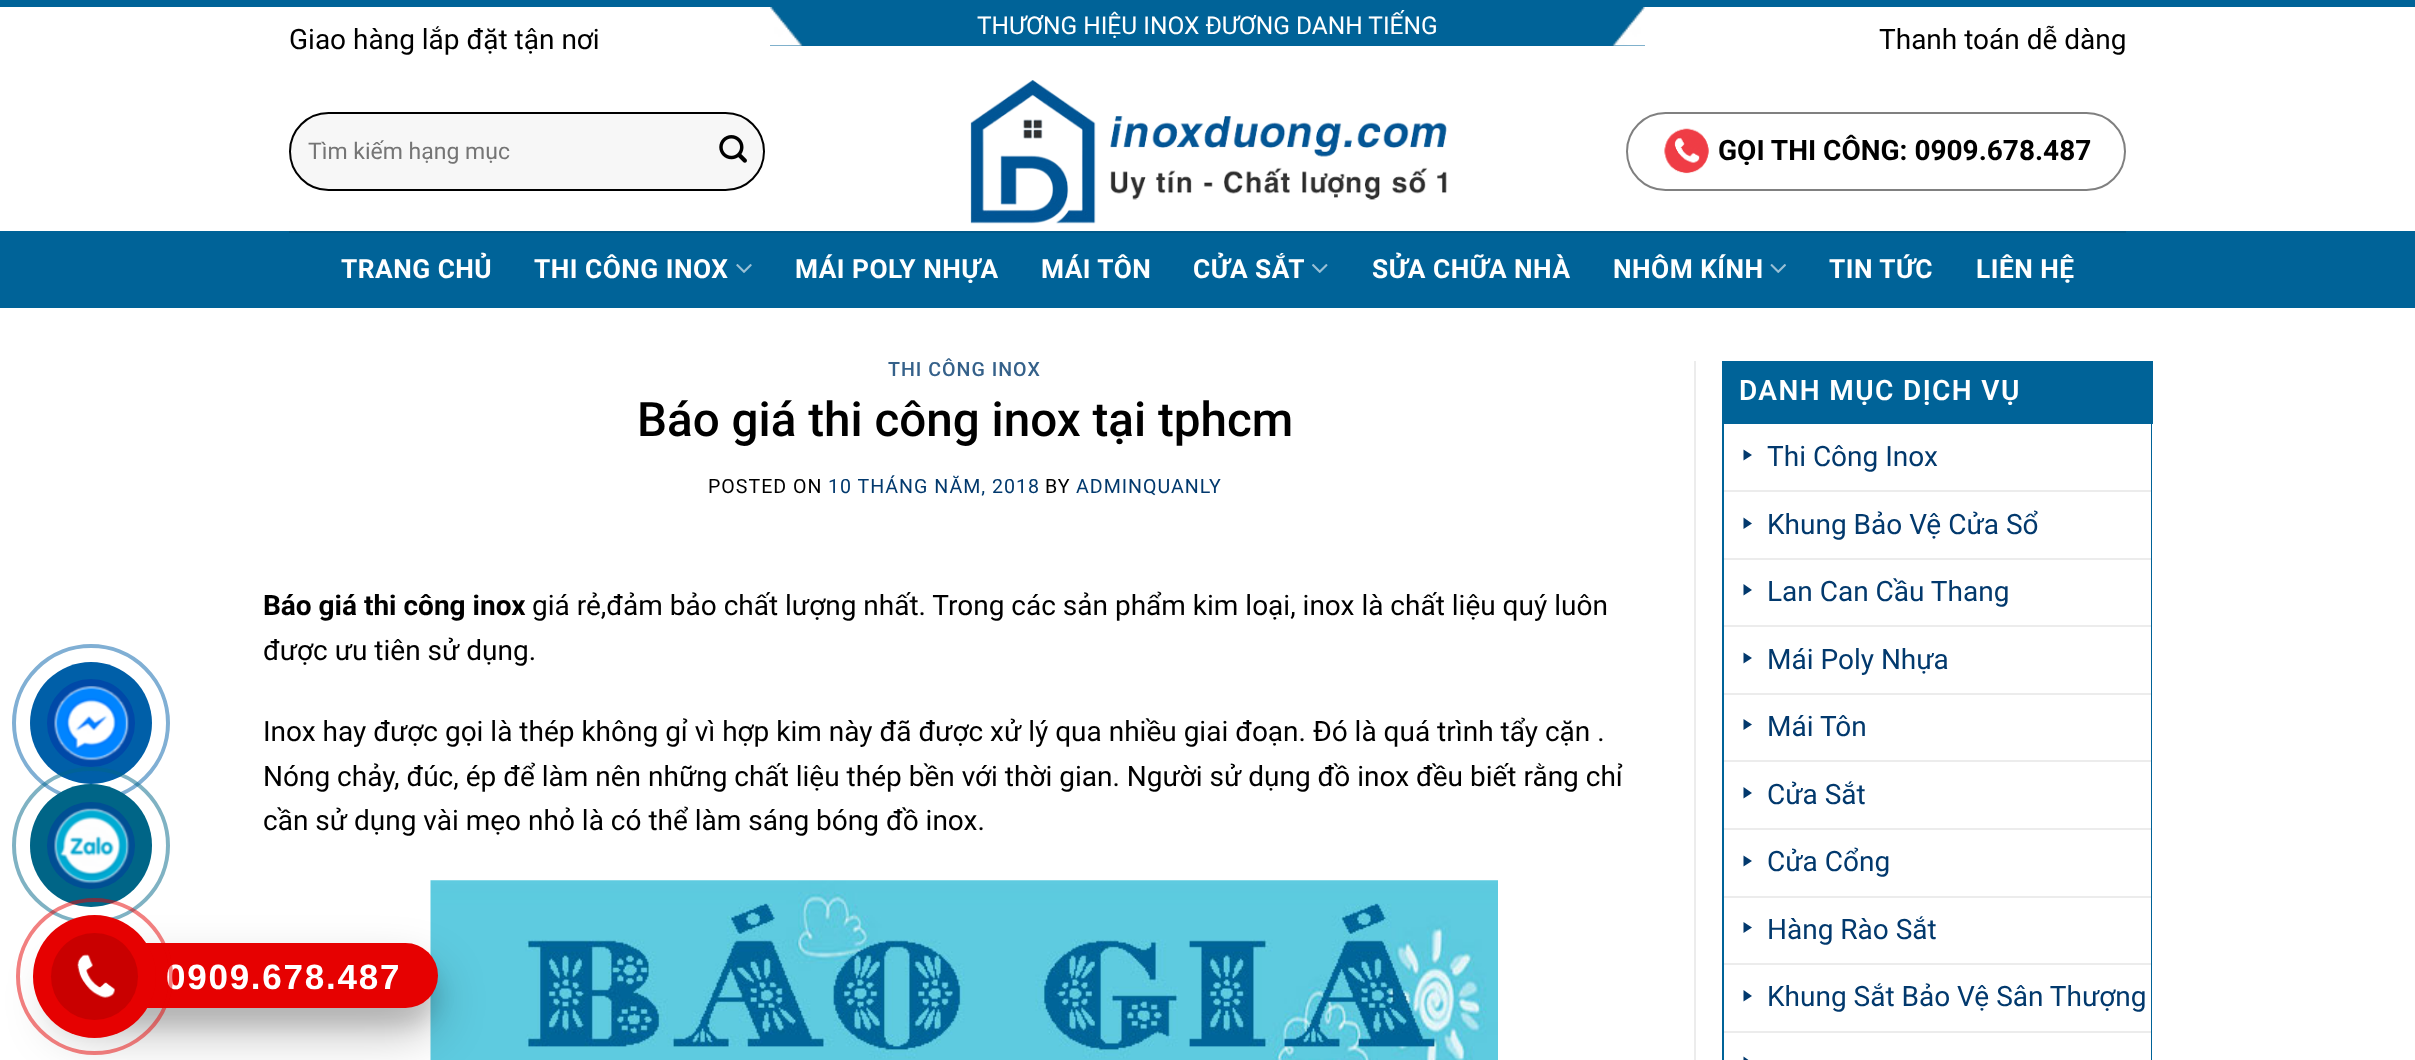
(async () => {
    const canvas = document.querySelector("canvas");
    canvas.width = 2415;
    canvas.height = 1060;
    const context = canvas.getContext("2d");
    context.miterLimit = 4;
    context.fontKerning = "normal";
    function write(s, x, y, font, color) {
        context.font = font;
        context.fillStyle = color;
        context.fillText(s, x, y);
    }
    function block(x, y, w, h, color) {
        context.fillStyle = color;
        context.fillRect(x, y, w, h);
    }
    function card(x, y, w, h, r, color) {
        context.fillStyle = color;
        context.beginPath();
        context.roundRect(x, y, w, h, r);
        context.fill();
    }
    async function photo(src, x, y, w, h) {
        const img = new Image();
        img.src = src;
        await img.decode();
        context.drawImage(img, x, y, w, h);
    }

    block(0, 0, 2415, 1060, "rgb(255, 255, 255)");
    block(0, 0, 2415, 7, "rgb(0, 99, 152)");
    write("Giao hàng lắp đặt tận nơi", 289, 49, "28px Roboto", "rgb(0, 0, 0)");
    block(770, 7, 875, 39, "rgb(0, 99, 152)");
    await photo("media/1.png", 770, 7, 875, 39);
    write("THƯƠNG HIỆU INOX ĐƯƠNG DANH TIẾNG", 977, 34, "24.5px Roboto", "rgb(255, 255, 255)");
    write("Thanh toán dễ dàng", 1879, 49, "28px Roboto", "rgb(0, 0, 0)");
    context.fillStyle = "rgb(247, 247, 247)";
    context.beginPath();
    context.roundRect(290, 113, 474, 77, 38.5);
    context.fill();
    context.strokeStyle = "rgb(0, 0, 0)";
    context.lineWidth = 2;
    context.stroke();
    write("Tìm kiếm hạng mục", 308, 159, "23px Roboto", "rgb(117, 117, 117)");
    await photo("media/2.png", 719, 135, 28, 28);
    await photo("media/3.png", 970, 80, 477, 144);
    await photo("media/4.png", 1664, 128, 45, 46);
    context.beginPath();
    context.roundRect(1627, 113, 498, 77, 38.5);
    context.strokeStyle = "rgb(128, 128, 128)";
    context.stroke();
    write("GỌI THI CÔNG: 0909.678.487", 1718, 160, "bold 28px Roboto", "rgb(0, 0, 0)");
    block(0, 231, 2415, 77, "rgb(0, 99, 152)");
    block(289, 231, 1837, 2, "rgb(0, 89, 137)");
    context.letterSpacing = "0.5px";
    write("TRANG CHỦ", 341, 278, "bold 26.25px Roboto", "rgb(255, 255, 255)");
    write("THI CÔNG INOX", 534, 278, "bold 26.25px Roboto", "rgb(255, 255, 255)");
    await photo("media/5.png", 736, 264, 16, 9);
    write("MÁI POLY NHỰA", 795, 278, "bold 26.25px Roboto", "rgb(255, 255, 255)");
    write("MÁI TÔN", 1041, 278, "bold 26.25px Roboto", "rgb(255, 255, 255)");
    write("CỬA SẮT", 1193, 278, "bold 26.25px Roboto", "rgb(255, 255, 255)");
    await photo("media/6.png", 1312, 264, 16, 9);
    write("SỬA CHỮA NHÀ", 1372, 278, "bold 26.25px Roboto", "rgb(255, 255, 255)");
    write("NHÔM KÍNH", 1613, 278, "bold 26.25px Roboto", "rgb(255, 255, 255)");
    await photo("media/7.png", 1770, 264, 16, 9);
    write("TIN TỨC", 1829, 278, "bold 26.25px Roboto", "rgb(255, 255, 255)");
    write("LIÊN HỆ", 1976, 278, "bold 26.25px Roboto", "rgb(255, 255, 255)");
    context.letterSpacing = "1px";
    write("THI CÔNG INOX", 888, 376, "500 19.6px Roboto", "rgb(53, 97, 138)");
    context.letterSpacing = "0px";
    write("Báo giá thi công inox tại tphcm", 637, 436, "500 47.6px Roboto", "rgb(0, 0, 0)");
    context.letterSpacing = "1px";
    write("POSTED ON", 708, 493, "19.6px Roboto", "rgb(0, 0, 0)");
    write("10 THÁNG NĂM, 2018", 828, 493, "19.6px Roboto", "rgb(2, 57, 109)");
    write("BY", 1045, 493, "19.6px Roboto", "rgb(0, 0, 0)");
    write("ADMINQUANLY", 1076, 493, "19.6px Roboto", "rgb(2, 57, 109)");
    context.letterSpacing = "0px";
    write("Báo giá thi công inox", 263, 615, "bold 28px Roboto", "rgb(0, 0, 0)");
    write("giá rẻ,đảm bảo chất lượng nhất. Trong các sản phẩm kim loại, inox là chất liệu quý luôn", 532, 615, "28px Roboto", "rgb(0, 0, 0)");
    write("được ưu tiên sử dụng.", 263, 660, "28px Roboto", "rgb(0, 0, 0)");
    write("Inox hay được gọi là thép không gỉ vì hợp kim này đã được xử lý qua nhiều giai đoạn. Đó là quá trình tẩy cặn .", 263, 741, "28px Roboto", "rgb(0, 0, 0)");
    write("Nóng chảy, đúc, ép để làm nên những chất liệu thép bền với thời gian. Người sử dụng đồ inox đều biết rằng chỉ", 263, 786, "28px Roboto", "rgb(0, 0, 0)");
    write("cần sử dụng vài mẹo nhỏ là có thể làm sáng bóng đồ inox.", 263, 830, "28px Roboto", "rgb(0, 0, 0)");
    await photo("media/8.png", 430, 880, 1068, 180);
    block(1694, 361, 2, 699, "rgb(236, 236, 236)");
    block(1722, 361, 431, 63, "rgb(0, 99, 152)");
    context.letterSpacing = "1.4px";
    write("DANH MỤC DỊCH VỤ", 1739, 400, "600 28px Roboto", "rgb(255, 255, 255)");
    context.fillStyle = "rgb(0, 99, 152)";
    context.beginPath();
    context.moveTo(1722, 424);
    context.lineTo(2152, 424);
    context.lineTo(2152, 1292);
    context.bezierCurveTo(2152, 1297, 2148, 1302, 2142, 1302);
    context.lineTo(1732, 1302);
    context.bezierCurveTo(1727, 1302, 1722, 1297, 1722, 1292);
    context.closePath();
    context.moveTo(1724, 424);
    context.lineTo(2151, 424);
    context.lineTo(2151, 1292);
    context.bezierCurveTo(2151, 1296, 2147, 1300, 2142, 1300);
    context.lineTo(1732, 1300);
    context.bezierCurveTo(1728, 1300, 1724, 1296, 1724, 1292);
    context.closePath();
    context.fill("evenodd");
    context.fillStyle = "rgb(2, 57, 109)";
    context.beginPath();
    context.moveTo(1743.5, 449.5);
    context.lineTo(1752, 455);
    context.lineTo(1743.5, 460.5);
    context.closePath();
    context.fill();
    context.letterSpacing = "0px";
    write("Thi Công Inox", 1767, 466, "28px Roboto", "rgb(2, 57, 109)");
    block(1724, 490, 427, 2, "rgb(236, 236, 236)");
    context.fillStyle = "rgb(2, 57, 109)";
    context.beginPath();
    context.moveTo(1743.5, 517.5);
    context.lineTo(1752, 523.5);
    context.lineTo(1743.5, 529);
    context.closePath();
    context.fill();
    write("Khung Bảo Vệ Cửa Sổ", 1767, 534, "28px Roboto", "rgb(2, 57, 109)");
    block(1724, 558, 427, 2, "rgb(236, 236, 236)");
    context.fillStyle = "rgb(2, 57, 109)";
    context.beginPath();
    context.moveTo(1743.5, 584);
    context.lineTo(1752, 590);
    context.lineTo(1743.5, 595.5);
    context.closePath();
    context.fill();
    write("Lan Can Cầu Thang", 1767, 601, "28px Roboto", "rgb(2, 57, 109)");
    block(1724, 625, 427, 2, "rgb(236, 236, 236)");
    context.fillStyle = "rgb(2, 57, 109)";
    context.beginPath();
    context.moveTo(1743.5, 652.5);
    context.lineTo(1752, 658);
    context.lineTo(1743.5, 663.5);
    context.closePath();
    context.fill();
    write("Mái Poly Nhựa", 1767, 669, "28px Roboto", "rgb(2, 57, 109)");
    block(1724, 693, 427, 2, "rgb(236, 236, 236)");
    context.fillStyle = "rgb(2, 57, 109)";
    context.beginPath();
    context.moveTo(1743.5, 719);
    context.lineTo(1752, 724.5);
    context.lineTo(1743.5, 730);
    context.closePath();
    context.fill();
    write("Mái Tôn", 1767, 736, "28px Roboto", "rgb(2, 57, 109)");
    block(1724, 760, 427, 2, "rgb(236, 236, 236)");
    context.fillStyle = "rgb(2, 57, 109)";
    context.beginPath();
    context.moveTo(1743.5, 787);
    context.lineTo(1752, 793);
    context.lineTo(1743.5, 798.5);
    context.closePath();
    context.fill();
    write("Cửa Sắt", 1767, 804, "28px Roboto", "rgb(2, 57, 109)");
    block(1724, 828, 427, 2, "rgb(236, 236, 236)");
    context.fillStyle = "rgb(2, 57, 109)";
    context.beginPath();
    context.moveTo(1743.5, 855.5);
    context.lineTo(1752, 861);
    context.lineTo(1743.5, 866.5);
    context.closePath();
    context.fill();
    write("Cửa Cổng", 1767, 871, "28px Roboto", "rgb(2, 57, 109)");
    block(1724, 896, 427, 2, "rgb(236, 236, 236)");
    context.fillStyle = "rgb(2, 57, 109)";
    context.beginPath();
    context.moveTo(1743.5, 922);
    context.lineTo(1752, 927.5);
    context.lineTo(1743.5, 933);
    context.closePath();
    context.fill();
    write("Hàng Rào Sắt", 1767, 939, "28px Roboto", "rgb(2, 57, 109)");
    block(1724, 963, 427, 2, "rgb(236, 236, 236)");
    context.fillStyle = "rgb(2, 57, 109)";
    context.beginPath();
    context.moveTo(1743.5, 990);
    context.lineTo(1752, 996);
    context.lineTo(1743.5, 1001.5);
    context.closePath();
    context.fill();
    write("Khung Sắt Bảo Vệ Sân Thượng", 1767, 1006, "28px Roboto", "rgb(2, 57, 109)");
    block(1724, 1031, 427, 2, "rgb(236, 236, 236)");
    context.fillStyle = "rgb(2, 57, 109)";
    context.beginPath();
    context.moveTo(1743.5, 1056.5);
    context.lineTo(1752, 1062.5);
    context.lineTo(1743.5, 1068);
    context.closePath();
    context.fill();
    context.beginPath();
    context.arc(91, 723, 77, 0, Math.PI * 2);
    context.strokeStyle = "rgb(128, 175, 212)";
    context.lineWidth = 4;
    context.stroke();
    context.fillStyle = "rgb(0, 95, 168)";
    context.beginPath();
    context.arc(91, 723, 61, 0, Math.PI * 2);
    context.fill();
    context.fillStyle = "rgb(0, 73, 168)";
    context.beginPath();
    context.arc(91, 723, 44, 0, Math.PI * 2);
    context.fill();
    await photo("media/9.png", 54, 686, 75, 75);
    context.fillStyle = "rgba(0, 0, 0, 0.25)";
    context.filter = "blur(24.5px)";
    context.beginPath();
    context.roundRect(53, 968, 385, 65, 32.5);
    context.fill();
    context.filter = "none";
    context.beginPath();
    context.roundRect(14, 769, 154, 153, 76.5);
    context.strokeStyle = "rgba(0, 101, 135, 0.5)";
    context.stroke();
    card(30, 784, 122, 123, 61, "rgb(0, 101, 135)");
    card(47, 802, 88, 87, 43.5, "rgb(0, 79, 148)");
    await photo("media/10.png", 54, 808, 76, 76);
    context.fillStyle = "rgba(0, 0, 0, 0.1)";
    context.filter = "blur(9px)";
    context.beginPath();
    context.roundRect(53, 961, 385, 65, 32.5);
    context.fill();
    context.filter = "none";
    card(53, 943, 385, 65, 32.5, "rgb(230, 1, 1)");
    context.letterSpacing = "1.75px";
    write("0909.678.487", 166, 989, "bold 35px Liberation Sans", "rgb(255, 255, 255)");
    context.beginPath();
    context.arc(94.5, 976.5, 76.5, 0, Math.PI * 2);
    context.strokeStyle = "rgba(230, 1, 1, 0.5)";
    context.stroke();
    context.fillStyle = "rgb(230, 1, 1)";
    context.beginPath();
    context.arc(94.5, 976.5, 61.5, 0, Math.PI * 2);
    context.fill();
    context.fillStyle = "rgb(201, 0, 0)";
    context.beginPath();
    context.arc(94.5, 976.5, 43.5, 0, Math.PI * 2);
    context.fill();
    await photo("media/11.png", 77, 954, 38, 44);
})();
